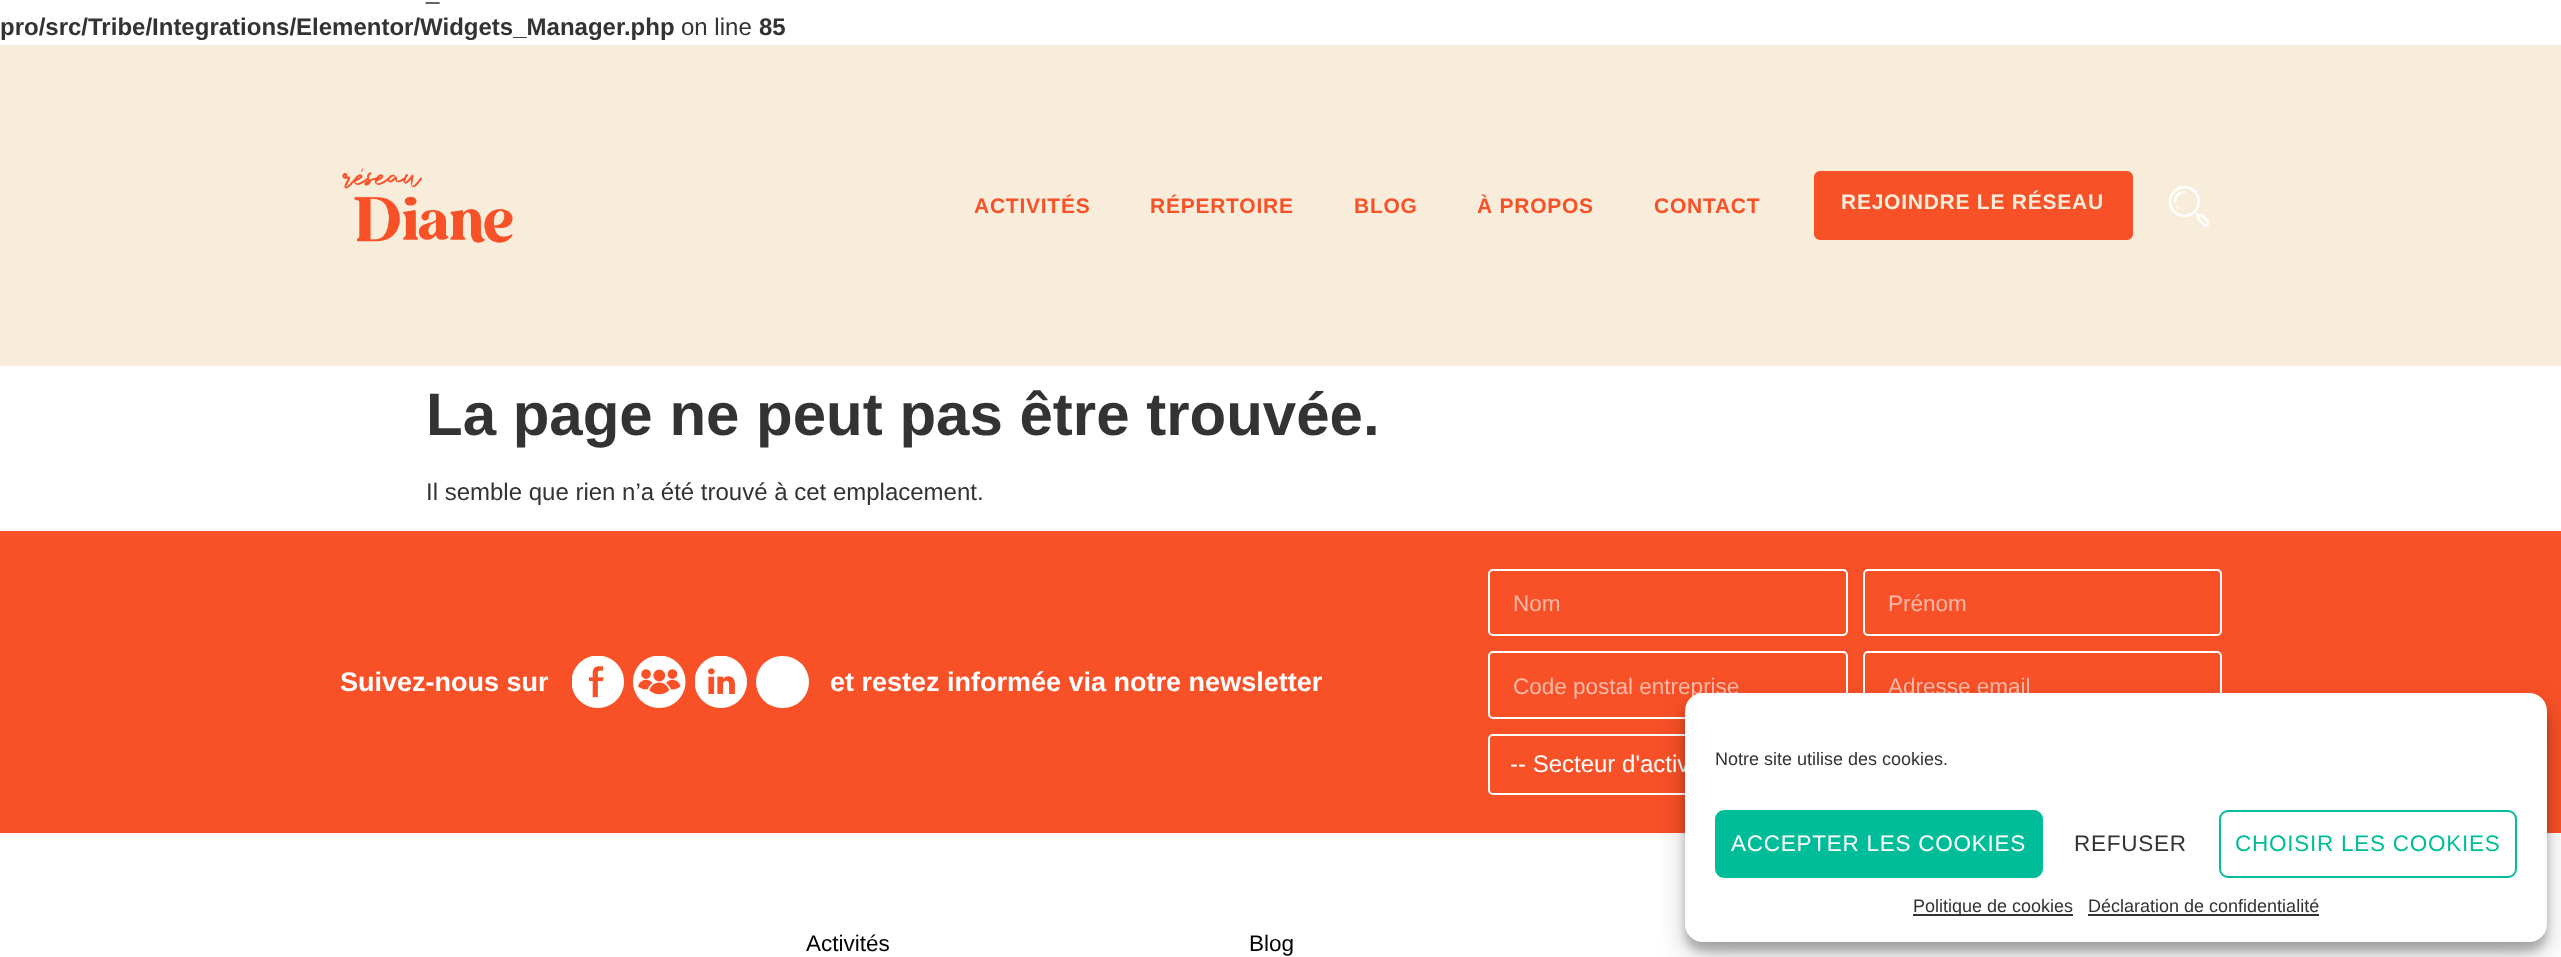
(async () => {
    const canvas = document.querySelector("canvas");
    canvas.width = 2561;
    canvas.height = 957;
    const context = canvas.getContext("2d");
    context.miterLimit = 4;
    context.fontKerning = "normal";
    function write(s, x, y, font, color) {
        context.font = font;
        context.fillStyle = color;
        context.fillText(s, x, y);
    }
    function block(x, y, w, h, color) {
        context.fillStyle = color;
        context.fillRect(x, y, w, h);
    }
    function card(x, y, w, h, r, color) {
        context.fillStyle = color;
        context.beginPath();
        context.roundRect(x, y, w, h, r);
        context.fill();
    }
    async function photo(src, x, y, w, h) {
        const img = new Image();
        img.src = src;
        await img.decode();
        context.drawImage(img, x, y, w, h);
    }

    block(0, 0, 2561, 957, "rgb(255, 255, 255)");
    write("_", 426, -1, "24px Liberation Sans", "rgb(51, 51, 51)");
    write("pro/src/Tribe/Integrations/Elementor/Widgets_Manager.php", 0, 35, "bold 24px Liberation Sans", "rgb(51, 51, 51)");
    write("on line", 681, 35, "24px Liberation Sans", "rgb(51, 51, 51)");
    write("85", 759, 35, "bold 24px Liberation Sans", "rgb(51, 51, 51)");
    block(0, 45, 2561, 321, "rgb(248, 237, 219)");
    await photo("media/1.png", 342, 168, 171, 75);
    context.letterSpacing = "0.75px";
    write("ACTIVITÉS", 974, 213, "bold 21px Liberation Sans", "rgb(248, 80, 39)");
    write("RÉPERTOIRE", 1150, 213, "bold 21px Liberation Sans", "rgb(248, 80, 39)");
    write("BLOG", 1354, 213, "bold 21px Liberation Sans", "rgb(248, 80, 39)");
    write("À PROPOS", 1477, 213, "bold 21px Liberation Sans", "rgb(248, 80, 39)");
    write("CONTACT", 1654, 213, "bold 21px Liberation Sans", "rgb(248, 80, 39)");
    context.beginPath();
    context.roundRect(1815.5, 172.5, 316, 66, 4.5);
    context.fill();
    context.strokeStyle = "rgb(248, 80, 39)";
    context.lineWidth = 3;
    context.stroke();
    write("REJOINDRE LE RÉSEAU", 1841, 209, "bold 21px Liberation Sans", "rgb(248, 237, 219)");
    await photo("media/2.png", 2169, 186, 41, 41);
    context.letterSpacing = "0px";
    write("La page ne peut pas être trouvée.", 426, 435, "bold 60px Liberation Sans", "rgb(51, 51, 51)");
    write("Il semble que rien n’a été trouvé à cet emplacement.", 426, 500, "24px Liberation Sans", "rgb(51, 51, 51)");
    block(0, 531, 2561, 302, "rgb(248, 80, 39)");
    write("Suivez-nous sur", 340, 691, "bold 27px Liberation Sans", "rgb(255, 255, 255)");
    await photo("media/3.png", 572, 656, 52, 52);
    await photo("media/4.png", 633, 656, 53, 52);
    await photo("media/5.png", 695, 656, 52, 52);
    card(756, 656, 53, 52, 26, "rgb(255, 255, 255)");
    write("et restez informée via notre newsletter", 830, 691, "bold 27px Liberation Sans", "rgb(255, 255, 255)");
    context.beginPath();
    context.roundRect(1489, 570, 358, 65, 4);
    context.strokeStyle = "rgb(255, 255, 255)";
    context.lineWidth = 2;
    context.stroke();
    write("Nom", 1513, 611, "22.5px Liberation Sans", "rgb(252, 185, 169)");
    context.beginPath();
    context.roundRect(1864, 570, 357, 65, 4);
    context.stroke();
    write("Prénom", 1888, 611, "22.5px Liberation Sans", "rgb(252, 185, 169)");
    context.beginPath();
    context.roundRect(1489, 652, 358, 66, 4);
    context.stroke();
    write("Code postal entreprise", 1513, 694, "22.5px Liberation Sans", "rgb(252, 185, 169)");
    context.beginPath();
    context.roundRect(1864, 652, 357, 66, 4);
    context.stroke();
    write("Adresse email", 1888, 694, "22.5px Liberation Sans", "rgb(252, 185, 169)");
    context.beginPath();
    context.roundRect(1489, 735, 358, 59, 4);
    context.stroke();
    write("-- Secteur d'activ", 1510, 772, "24px Liberation Sans", "rgb(255, 255, 255)");
    write("Activités", 806, 951, "22.5px Liberation Sans", "rgb(0, 0, 0)");
    write("Blog", 1249, 951, "22.5px Liberation Sans", "rgb(0, 0, 0)");
    context.fillStyle = "rgba(0, 0, 0, 0.23)";
    context.filter = "blur(4.5px)";
    context.beginPath();
    context.roundRect(1685, 702, 862, 249, 18);
    context.fill();
    context.filter = "none";
    context.fillStyle = "rgba(0, 0, 0, 0.19)";
    context.filter = "blur(15px)";
    context.beginPath();
    context.roundRect(1685, 708, 862, 249, 18);
    context.fill();
    context.filter = "none";
    card(1685, 693, 862, 249, 18, "rgb(255, 255, 255)");
    write("Notre site utilise des cookies.", 1715, 765, "18px Liberation Sans", "rgb(51, 51, 51)");
    context.fillStyle = "rgb(0, 189, 153)";
    context.beginPath();
    context.roundRect(1716, 811, 326, 66, 8);
    context.fill();
    context.strokeStyle = "rgb(0, 189, 153)";
    context.stroke();
    context.letterSpacing = "0.75px";
    write("ACCEPTER LES COOKIES", 1731, 851, "22.5px Liberation Sans", "rgb(255, 255, 255)");
    write("REFUSER", 2074, 851, "22.5px Liberation Sans", "rgb(51, 51, 51)");
    context.beginPath();
    context.roundRect(2220, 811, 296, 66, 8);
    context.stroke();
    write("CHOISIR LES COOKIES", 2235, 851, "22.5px Liberation Sans", "rgb(0, 189, 153)");
    block(1913, 914, 160, 2, "rgb(51, 51, 51)");
    context.letterSpacing = "0px";
    write("Politique de cookies", 1913, 912, "18px Liberation Sans", "rgb(51, 51, 51)");
    write("Déclaration de confidentialité", 2088, 912, "18px Liberation Sans", "rgb(51, 51, 51)");
    block(2088, 914, 231, 2, "rgb(51, 51, 51)");
})();
